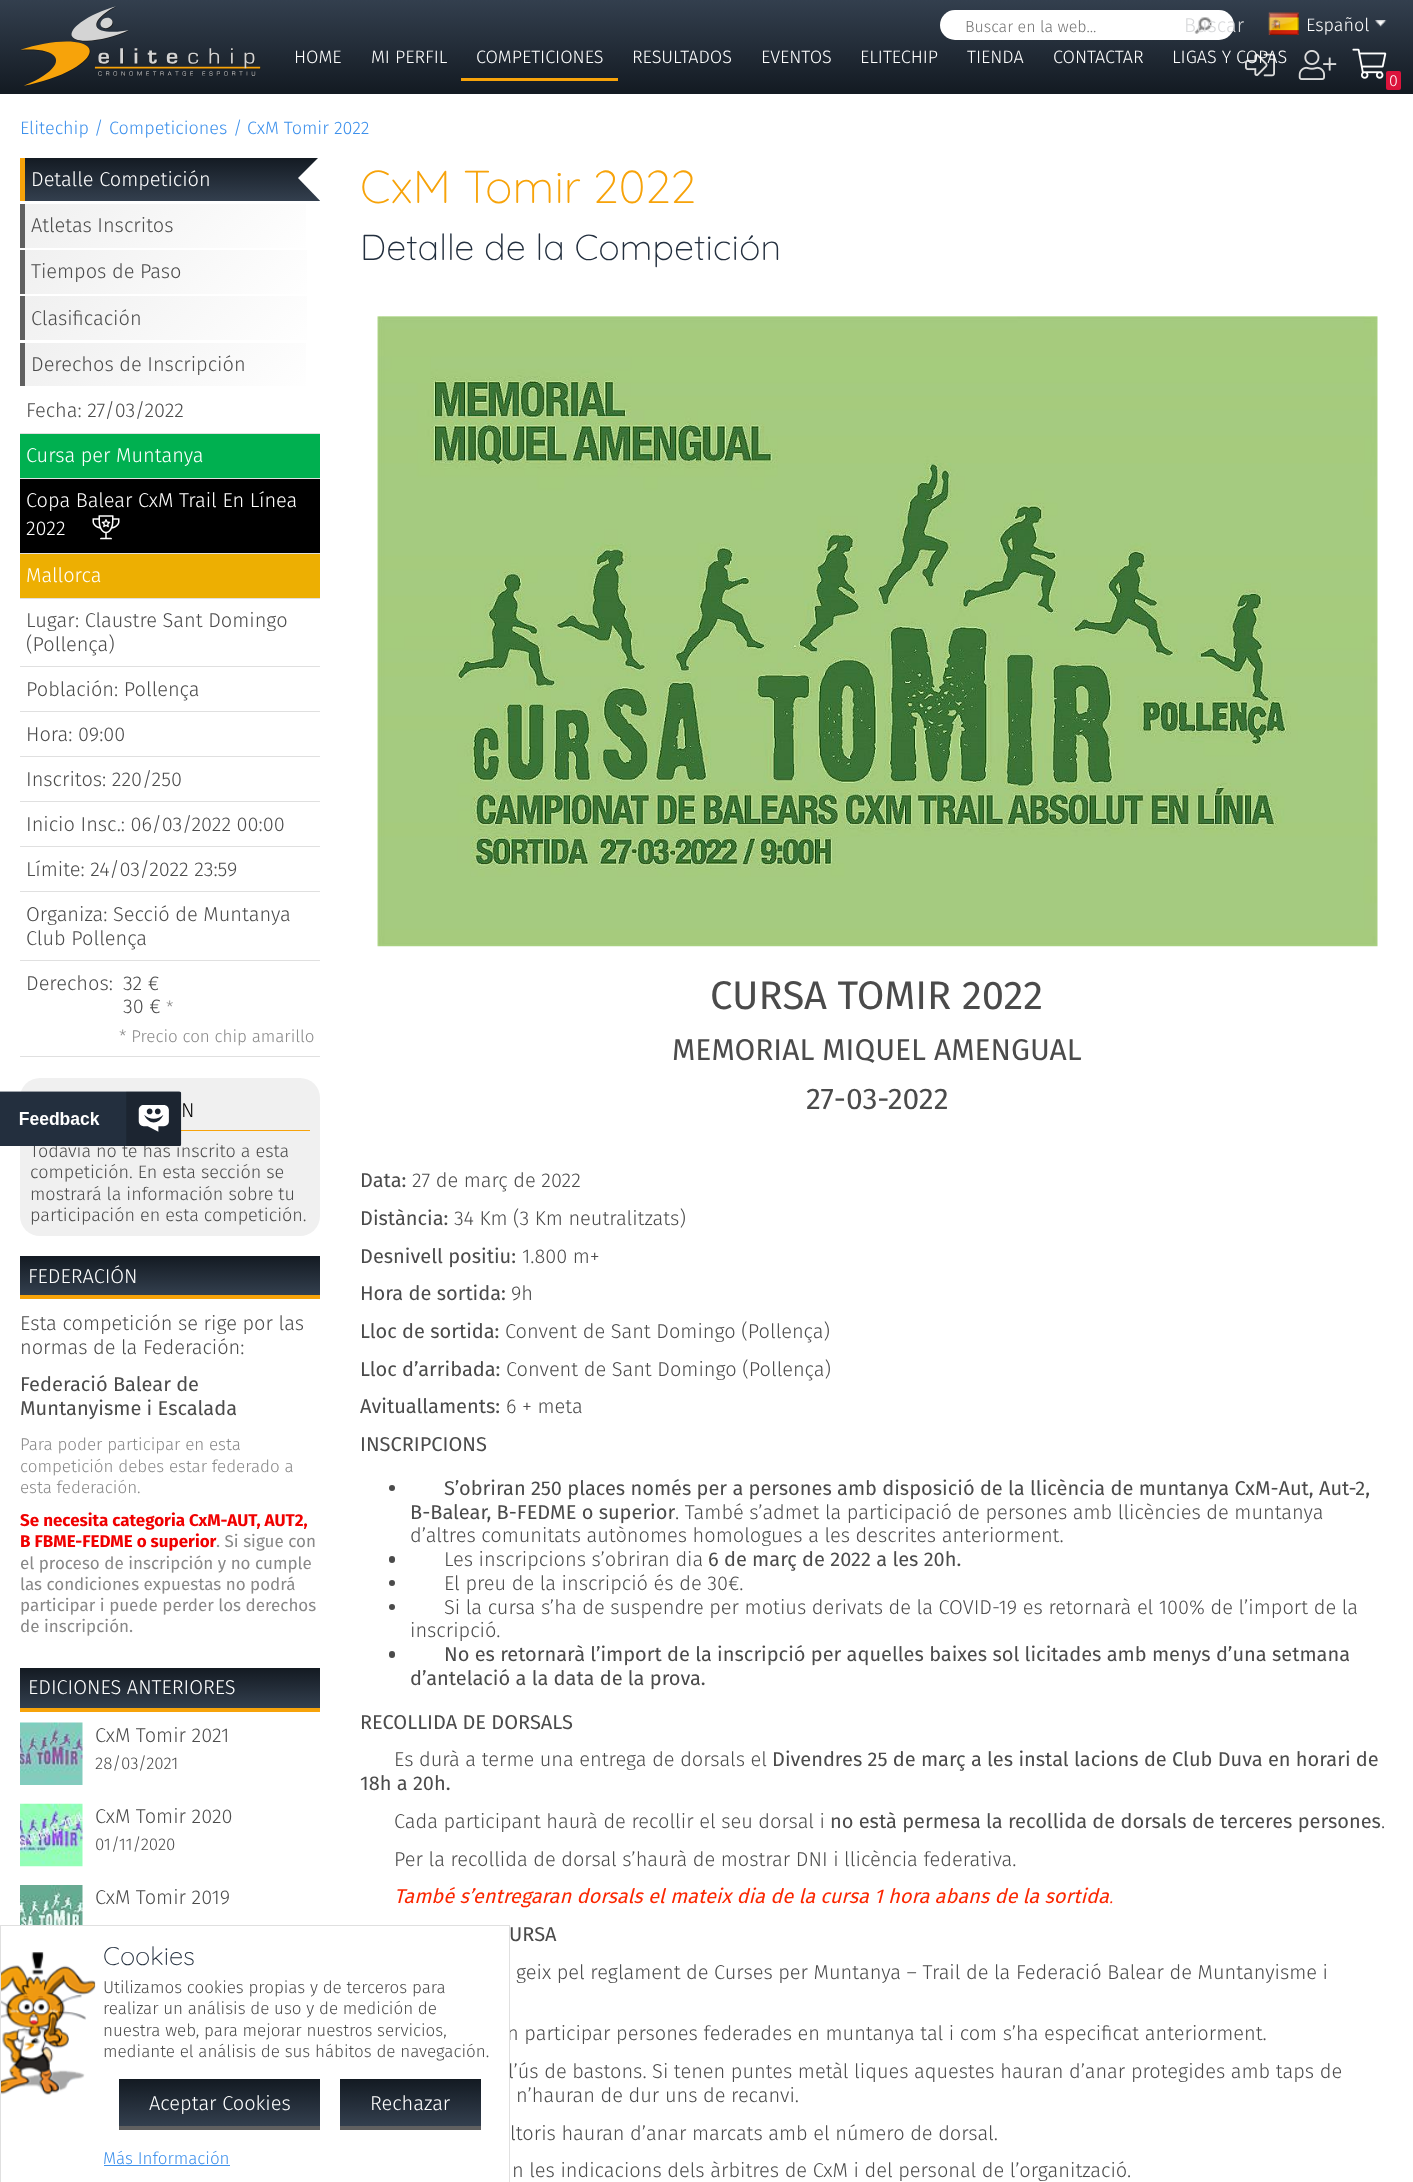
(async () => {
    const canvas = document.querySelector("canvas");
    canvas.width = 1413;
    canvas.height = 2182;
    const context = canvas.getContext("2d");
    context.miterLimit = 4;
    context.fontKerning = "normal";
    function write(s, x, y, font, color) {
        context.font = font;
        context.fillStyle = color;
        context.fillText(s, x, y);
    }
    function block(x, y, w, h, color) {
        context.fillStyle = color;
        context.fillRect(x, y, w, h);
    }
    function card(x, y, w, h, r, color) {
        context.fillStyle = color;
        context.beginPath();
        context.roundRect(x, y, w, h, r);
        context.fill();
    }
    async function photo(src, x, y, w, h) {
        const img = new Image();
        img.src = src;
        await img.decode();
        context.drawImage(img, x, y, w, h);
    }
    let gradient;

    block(0, 0, 1413, 2182, "rgb(255, 255, 255)");
    gradient = context.createLinearGradient(707, 0, 707, 94);
    gradient.addColorStop(0, "rgb(51, 63, 78)");
    gradient.addColorStop(1, "rgb(19, 26, 34)");
    context.fillStyle = gradient;
    context.fillRect(0, 0, 1413, 90);
    await photo("media/1.png", 21, 6, 240, 80);
    card(940, 10, 294, 30, 15, "rgb(255, 255, 255)");
    write("Buscar en la web...", 965, 32, "300 16px Fira Sans", "rgb(117, 117, 117)");
    await photo("media/2.png", 1194, 17, 18, 17);
    write("Buscar", 1184, 32, "300 20px Fira Sans", "rgb(217, 218, 220)");
    await photo("media/3.png", 1268, 12, 31, 23);
    await photo("media/4.png", 1375, 20, 12, 7);
    write("Español", 1306, 31, "300 18px Fira Sans", "rgb(255, 255, 255)");
    write("HOME", 294, 63, "300 18px Fira Sans", "rgb(255, 255, 255)");
    write("MI PERFIL", 371, 63, "300 18px Fira Sans", "rgb(255, 255, 255)");
    block(461, 78, 157, 3, "rgb(247, 163, 10)");
    write("COMPETICIONES", 476, 63, "300 18px Fira Sans", "rgb(255, 255, 255)");
    write("RESULTADOS", 632, 63, "300 18px Fira Sans", "rgb(255, 255, 255)");
    write("EVENTOS", 761, 63, "300 18px Fira Sans", "rgb(255, 255, 255)");
    write("ELITECHIP", 860, 63, "300 18px Fira Sans", "rgb(255, 255, 255)");
    write("TIENDA", 967, 63, "300 18px Fira Sans", "rgb(255, 255, 255)");
    write("CONTACTAR", 1053, 63, "300 18px Fira Sans", "rgb(255, 255, 255)");
    await photo("media/5.png", 1245, 53, 30, 24);
    write("LIGAS Y COPAS", 1172, 63, "300 18px Fira Sans", "rgb(255, 255, 255)");
    await photo("media/6.png", 1298, 50, 39, 30);
    await photo("media/7.png", 1352, 48, 35, 31);
    card(1386, 71, 15, 19, 2, "rgb(220, 20, 60)");
    write("0", 1389, 86, "300 16px Fira Sans", "rgb(255, 255, 255)");
    block(0, 90, 1413, 4, "rgb(19, 26, 34)");
    write("Elitechip", 20, 134, "300 18px Fira Sans", "rgb(62, 145, 236)");
    write("/", 94, 134, "300 18px Fira Sans", "rgb(62, 145, 236)");
    write("Competiciones", 109, 134, "300 18px Fira Sans", "rgb(62, 145, 236)");
    write("/", 233, 134, "300 18px Fira Sans", "rgb(62, 145, 236)");
    write("CxM Tomir 2022", 247, 134, "300 18px Fira Sans", "rgb(62, 145, 236)");
    gradient = context.createLinearGradient(173, 157, 173, 201);
    gradient.addColorStop(0, "rgb(19, 26, 34)");
    gradient.addColorStop(1, "rgb(51, 63, 78)");
    context.fillStyle = gradient;
    context.fillRect(25, 158, 295, 43);
    block(20, 158, 5, 43, "rgb(247, 163, 10)");
    write("Detalle Competición", 31, 186, "300 20px Fira Sans", "rgb(255, 255, 255)");
    context.save();
    context.beginPath();
    context.rect(20, 158, 300, 231);
    context.clip();
    context.beginPath();
    context.moveTo(326, 150);
    context.lineTo(354, 178);
    context.lineTo(326, 207);
    context.lineTo(298, 178);
    context.closePath();
    context.fill();
    context.restore();
    gradient = context.createLinearGradient(88, 141, 257, 310);
    gradient.addColorStop(0, "rgb(240, 240, 240)");
    gradient.addColorStop(1, "rgb(255, 255, 255)");
    context.fillStyle = gradient;
    context.fillRect(25, 204, 281, 44);
    block(20, 204, 5, 44, "rgb(96, 96, 96)");
    write("Atletas Inscritos", 31, 232, "300 20px Fira Sans", "rgb(75, 75, 75)");
    gradient = context.createLinearGradient(88, 187, 257, 357);
    gradient.addColorStop(0, "rgb(240, 240, 240)");
    gradient.addColorStop(1, "rgb(255, 255, 255)");
    context.fillStyle = gradient;
    context.fillRect(25, 250, 282, 44);
    block(20, 250, 5, 44, "rgb(96, 96, 96)");
    write("Tiempos de Paso", 31, 278, "300 20px Fira Sans", "rgb(75, 75, 75)");
    gradient = context.createLinearGradient(88, 233, 257, 403);
    gradient.addColorStop(0, "rgb(240, 240, 240)");
    gradient.addColorStop(1, "rgb(255, 255, 255)");
    context.fillStyle = gradient;
    context.fillRect(25, 296, 282, 44);
    block(20, 296, 5, 44, "rgb(96, 96, 96)");
    write("Clasificación", 31, 325, "300 20px Fira Sans", "rgb(75, 75, 75)");
    gradient = context.createLinearGradient(88, 280, 257, 449);
    gradient.addColorStop(0, "rgb(240, 240, 240)");
    gradient.addColorStop(1, "rgb(255, 255, 255)");
    context.fillStyle = gradient;
    context.fillRect(25, 343, 281, 43);
    block(20, 343, 5, 43, "rgb(96, 96, 96)");
    write("Derechos de Inscripción", 31, 371, "300 20px Fira Sans", "rgb(75, 75, 75)");
    block(20, 433, 300, 1, "rgb(224, 224, 224)");
    write("Fecha: 27/03/2022", 26, 417, "300 20px Fira Sans", "rgb(75, 75, 75)");
    block(20, 434, 300, 44, "rgb(0, 176, 80)");
    block(20, 478, 300, 1, "rgb(224, 224, 224)");
    write("Cursa per Muntanya", 26, 462, "300 20px Fira Sans", "rgb(255, 255, 255)");
    block(20, 479, 300, 74, "rgb(0, 0, 0)");
    block(20, 553, 300, 1, "rgb(224, 224, 224)");
    write("Copa Balear CxM Trail En Línea", 26, 507, "300 20px Fira Sans", "rgb(255, 255, 255)");
    write("2022", 26, 535, "300 20px Fira Sans", "rgb(255, 255, 255)");
    await photo("media/8.png", 92, 515, 28, 25);
    block(20, 554, 300, 44, "rgb(237, 175, 2)");
    block(20, 598, 300, 1, "rgb(224, 224, 224)");
    write("Mallorca", 26, 582, "300 20px Fira Sans", "rgb(255, 255, 255)");
    block(20, 666, 300, 1, "rgb(224, 224, 224)");
    write("Lugar: Claustre Sant Domingo", 26, 627, "300 20px Fira Sans", "rgb(75, 75, 75)");
    write("(Pollença)", 26, 651, "300 20px Fira Sans", "rgb(75, 75, 75)");
    block(20, 711, 300, 1, "rgb(224, 224, 224)");
    write("Población: Pollença", 26, 696, "300 20px Fira Sans", "rgb(75, 75, 75)");
    block(20, 756, 300, 1, "rgb(224, 224, 224)");
    write("Hora: 09:00", 26, 741, "300 20px Fira Sans", "rgb(75, 75, 75)");
    block(20, 801, 300, 1, "rgb(224, 224, 224)");
    write("Inscritos: 220/250", 26, 786, "300 20px Fira Sans", "rgb(75, 75, 75)");
    block(20, 846, 300, 1, "rgb(224, 224, 224)");
    write("Inicio Insc.: 06/03/2022 00:00", 26, 831, "300 20px Fira Sans", "rgb(75, 75, 75)");
    block(20, 891, 300, 1, "rgb(224, 224, 224)");
    write("Límite: 24/03/2022 23:59", 26, 876, "300 20px Fira Sans", "rgb(75, 75, 75)");
    block(20, 960, 300, 1, "rgb(224, 224, 224)");
    write("Organiza: Secció de Muntanya", 26, 921, "300 20px Fira Sans", "rgb(75, 75, 75)");
    write("Club Pollença", 26, 945, "300 20px Fira Sans", "rgb(75, 75, 75)");
    block(20, 1056, 300, 1, "rgb(224, 224, 224)");
    write("Derechos:", 26, 990, "300 20px Fira Sans", "rgb(75, 75, 75)");
    write("32 €", 123, 990, "300 20px Fira Sans", "rgb(75, 75, 75)");
    write("30 €", 123, 1013, "300 20px Fira Sans", "rgb(75, 75, 75)");
    write("*", 166, 1013, "300 17px Fira Sans", "rgb(136, 136, 136)");
    write("* Precio con chip amarillo", 119, 1042, "300 17px Fira Sans", "rgb(136, 136, 136)");
    card(20, 1078, 300, 158, 20, "rgb(240, 240, 240)");
    block(181, 1130, 129, 1, "rgb(247, 163, 10)");
    write("N", 181, 1117, "300 20px Fira Sans", "rgb(0, 0, 0)");
    write("Todavía no te has inscrito a esta", 30, 1157, "300 18px Fira Sans", "rgb(75, 75, 75)");
    write("competición. En esta sección se", 30, 1178, "300 18px Fira Sans", "rgb(75, 75, 75)");
    write("mostrará la información sobre tu", 30, 1200, "300 18px Fira Sans", "rgb(75, 75, 75)");
    write("participación en esta competición.", 30, 1221, "300 18px Fira Sans", "rgb(75, 75, 75)");
    gradient = context.createLinearGradient(170, 1256, 170, 1295);
    gradient.addColorStop(0, "rgb(19, 26, 34)");
    gradient.addColorStop(1, "rgb(51, 63, 78)");
    context.fillStyle = gradient;
    context.fillRect(20, 1256, 300, 39);
    block(20, 1295, 300, 4, "rgb(247, 163, 10)");
    write("FEDERACIÓN", 28, 1283, "300 20px Fira Sans", "rgb(255, 255, 255)");
    write("Esta competición se rige por las", 20, 1330, "300 20px Fira Sans", "rgb(75, 75, 75)");
    write("normas de la Federación:", 20, 1354, "300 20px Fira Sans", "rgb(75, 75, 75)");
    write("Federació Balear de", 20, 1391, "20px Fira Sans", "rgb(75, 75, 75)");
    write("Muntanyisme i Escalada", 20, 1415, "20px Fira Sans", "rgb(75, 75, 75)");
    write("Para poder participar en esta", 20, 1450, "300 17px Fira Sans", "rgb(136, 136, 136)");
    write("competición debes estar federado a", 20, 1472, "300 17px Fira Sans", "rgb(136, 136, 136)");
    write("esta federación.", 20, 1493, "300 17px Fira Sans", "rgb(136, 136, 136)");
    write("Se necesita categoria CxM-AUT, AUT2,", 20, 1526, "bold 17px Fira Sans", "rgb(240, 0, 0)");
    write("B FBME-FEDME o superior", 20, 1547, "bold 17px Fira Sans", "rgb(240, 0, 0)");
    write(". Si sigue con", 216, 1547, "17px Fira Sans", "rgb(136, 136, 136)");
    write("el proceso de inscripción y no cumple", 20, 1569, "17px Fira Sans", "rgb(136, 136, 136)");
    write("las condiciones expuestas no podrá", 20, 1590, "17px Fira Sans", "rgb(136, 136, 136)");
    write("participar i puede perder los derechos", 20, 1611, "17px Fira Sans", "rgb(136, 136, 136)");
    write("de inscripción.", 20, 1632, "17px Fira Sans", "rgb(136, 136, 136)");
    gradient = context.createLinearGradient(170, 1668, 170, 1708);
    gradient.addColorStop(0, "rgb(19, 26, 34)");
    gradient.addColorStop(1, "rgb(51, 63, 78)");
    context.fillStyle = gradient;
    context.fillRect(20, 1668, 300, 40);
    block(20, 1708, 300, 4, "rgb(247, 163, 10)");
    write("EDICIONES ANTERIORES", 28, 1694, "300 20px Fira Sans", "rgb(255, 255, 255)");
    await photo("media/9.png", 20, 1722, 63, 63);
    write("CxM Tomir 2021", 95, 1742, "300 20px Fira Sans", "rgb(75, 75, 75)");
    write("28/03/2021", 95, 1769, "300 17px Fira Sans", "rgb(75, 75, 75)");
    await photo("media/10.png", 20, 1803, 63, 64);
    write("CxM Tomir 2020", 95, 1823, "300 20px Fira Sans", "rgb(75, 75, 75)");
    write("01/11/2020", 95, 1850, "300 17px Fira Sans", "rgb(75, 75, 75)");
    await photo("media/11.png", 20, 1885, 63, 40);
    write("CxM Tomir 2019", 95, 1904, "300 20px Fira Sans", "rgb(75, 75, 75)");
    write("CxM Tomir 2022", 360, 203, "300 46px Quicksand", "rgb(247, 163, 10)");
    write("Detalle de la Competición", 360, 260, "300 36px Quicksand", "rgb(35, 47, 62)");
    await photo("media/12.png", 377, 316, 1001, 631);
    write("CURSA TOMIR 2022", 710, 1009, "40px Fira Sans", "rgb(75, 75, 75)");
    write("MEMORIAL MIQUEL AMENGUAL", 672, 1060, "30px Fira Sans", "rgb(75, 75, 75)");
    write("27-03-2022", 806, 1109, "30px Fira Sans", "rgb(75, 75, 75)");
    write("Data:", 360, 1187, "20px Fira Sans", "rgb(75, 75, 75)");
    write("27 de març de 2022", 412, 1187, "300 20px Fira Sans", "rgb(75, 75, 75)");
    write("Distància:", 360, 1225, "20px Fira Sans", "rgb(75, 75, 75)");
    write("34 Km (3 Km neutralitzats)", 454, 1225, "300 20px Fira Sans", "rgb(75, 75, 75)");
    write("Desnivell positiu:", 360, 1263, "20px Fira Sans", "rgb(75, 75, 75)");
    write("1.800 m+", 522, 1263, "300 20px Fira Sans", "rgb(75, 75, 75)");
    write("Hora de sortida:", 360, 1300, "20px Fira Sans", "rgb(75, 75, 75)");
    write("9h", 511, 1300, "300 20px Fira Sans", "rgb(75, 75, 75)");
    write("Lloc de sortida:", 360, 1338, "20px Fira Sans", "rgb(75, 75, 75)");
    write("Convent de Sant Domingo (Pollença)", 505, 1338, "300 20px Fira Sans", "rgb(75, 75, 75)");
    write("Lloc d’arribada:", 360, 1376, "20px Fira Sans", "rgb(75, 75, 75)");
    write("Convent de Sant Domingo (Pollença)", 506, 1376, "300 20px Fira Sans", "rgb(75, 75, 75)");
    write("Avituallaments:", 360, 1413, "20px Fira Sans", "rgb(75, 75, 75)");
    write("6 + meta", 506, 1413, "300 20px Fira Sans", "rgb(75, 75, 75)");
    write("INSCRIPCIONS", 360, 1451, "20px Fira Sans", "rgb(75, 75, 75)");
    context.beginPath();
    context.arc(392, 1488, 3, 0, Math.PI * 2);
    context.fill();
    write("S’obriran 250 places només per a persones amb disposició de la llicència de muntanya CxM-Aut, Aut-2,", 444, 1495, "20px Fira Sans", "rgb(75, 75, 75)");
    write("B-Balear, B-FEDME o superior", 410, 1519, "20px Fira Sans", "rgb(75, 75, 75)");
    write(". També s’admet la participació de persones amb llicències de muntanya", 675, 1519, "300 20px Fira Sans", "rgb(75, 75, 75)");
    write("d’altres comunitats autònomes homologues a les descrites anteriorment.", 410, 1542, "300 20px Fira Sans", "rgb(75, 75, 75)");
    card(389, 1556, 6, 7, 3, "rgb(75, 75, 75)");
    write("Les inscripcions s’obriran dia", 444, 1566, "300 20px Fira Sans", "rgb(75, 75, 75)");
    write("6 de març de 2022 a les 20h.", 708, 1566, "20px Fira Sans", "rgb(75, 75, 75)");
    context.beginPath();
    context.arc(392, 1583, 3, 0, Math.PI * 2);
    context.fill();
    write("El preu de la inscripció és de 30€.", 444, 1590, "300 20px Fira Sans", "rgb(75, 75, 75)");
    context.beginPath();
    context.arc(392, 1607, 3, 0, Math.PI * 2);
    context.fill();
    write("Si la cursa s’ha de suspendre per motius derivats de la COVID-19 es retornarà el 100% de l’import de la", 444, 1614, "300 20px Fira Sans", "rgb(75, 75, 75)");
    write("inscripció.", 410, 1637, "300 20px Fira Sans", "rgb(75, 75, 75)");
    card(389, 1651, 6, 7, 3, "rgb(75, 75, 75)");
    write("No es retornarà l’import de la inscripció per aquelles baixes sol licitades amb menys d’una setmana", 444, 1661, "20px Fira Sans", "rgb(75, 75, 75)");
    write("d’antelació a la data de la prova.", 410, 1685, "20px Fira Sans", "rgb(75, 75, 75)");
    write("RECOLLIDA DE DORSALS", 360, 1729, "20px Fira Sans", "rgb(75, 75, 75)");
    write("Es durà a terme una entrega de dorsals el", 394, 1766, "300 20px Fira Sans", "rgb(75, 75, 75)");
    write("Divendres 25 de març a les instal lacions de Club Duva en horari de", 772, 1766, "20px Fira Sans", "rgb(75, 75, 75)");
    write("18h a 20h.", 360, 1790, "20px Fira Sans", "rgb(75, 75, 75)");
    write("Cada participant haurà de recollir el seu dorsal i", 394, 1828, "300 20px Fira Sans", "rgb(75, 75, 75)");
    write("no està permesa la recollida de dorsals de terceres persones", 830, 1828, "20px Fira Sans", "rgb(75, 75, 75)");
    write(".", 1381, 1828, "300 20px Fira Sans", "rgb(75, 75, 75)");
    write("Per la recollida de dorsal s’haurà de mostrar DNI i llicència federativa.", 394, 1866, "300 20px Fira Sans", "rgb(75, 75, 75)");
    write("També s’entregaran dorsals el mateix dia de la cursa 1 hora abans de la sortida", 394, 1903, "italic 20px Fira Sans", "rgb(251, 39, 1)");
    write(".", 1109, 1903, "italic 300 20px Fira Sans", "rgb(251, 39, 1)");
    write("URSA", 509, 1941, "20px Fira Sans", "rgb(75, 75, 75)");
    write("geix pel reglament de Curses per Muntanya – Trail de la Federació Balear de Muntanyisme i", 516, 1979, "300 20px Fira Sans", "rgb(75, 75, 75)");
    write("n participar persones federades en muntanya tal i com s’ha especificat anteriorment.", 507, 2040, "300 20px Fira Sans", "rgb(75, 75, 75)");
    write("l’ús de bastons. Si tenen puntes metàl liques aquestes hauran d’anar protegides amb taps de", 508, 2078, "300 20px Fira Sans", "rgb(75, 75, 75)");
    write("n’hauran de dur uns de recanvi.", 516, 2102, "300 20px Fira Sans", "rgb(75, 75, 75)");
    write("ltoris hauran d’anar marcats amb el número de dorsal.", 510, 2140, "300 20px Fira Sans", "rgb(75, 75, 75)");
    write("n les indicacions dels àrbitres de CxM i del personal de l’organització.", 512, 2177, "300 20px Fira Sans", "rgb(75, 75, 75)");
    await photo("media/13.png", 0, 1091, 182, 55);
    block(508, 2029, 1, 11, "rgb(255, 255, 255)");
    await photo("media/14.png", 1, 1952, 95, 143);
    context.strokeStyle = "rgb(224, 224, 224)";
    context.strokeRect(0.5, 1925.5, 509, 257);
    write("Cookies", 103, 1965, "300 25.5px Quicksand", "rgb(35, 47, 62)");
    write("Utilizamos cookies propias y de terceros para", 103, 1993, "300 17px Fira Sans", "rgb(75, 75, 75)");
    write("realizar un análisis de uso y de medición de", 103, 2014, "300 17px Fira Sans", "rgb(75, 75, 75)");
    write("nuestra web, para mejorar nuestros servicios,", 103, 2036, "300 17px Fira Sans", "rgb(75, 75, 75)");
    write("mediante el análisis de sus hábitos de navegación.", 103, 2057, "300 17px Fira Sans", "rgb(75, 75, 75)");
    gradient = context.createLinearGradient(219, 2079, 219, 2126);
    gradient.addColorStop(0, "rgb(19, 26, 34)");
    gradient.addColorStop(1, "rgb(51, 63, 78)");
    context.fillStyle = gradient;
    context.fillRect(119, 2079, 201, 47);
    block(119, 2126, 201, 4, "rgb(96, 96, 96)");
    write("Aceptar Cookies", 149, 2110, "300 20px Fira Sans", "rgb(255, 255, 255)");
    gradient = context.createLinearGradient(411, 2079, 411, 2126);
    gradient.addColorStop(0, "rgb(19, 26, 34)");
    gradient.addColorStop(1, "rgb(51, 63, 78)");
    context.fillStyle = gradient;
    context.fillRect(340, 2079, 141, 47);
    block(340, 2126, 141, 4, "rgb(96, 96, 96)");
    write("Rechazar", 370, 2110, "300 20px Fira Sans", "rgb(255, 255, 255)");
    write("Más Información", 103, 2164, "300 17px Fira Sans", "rgb(62, 145, 236)");
    block(104, 2165, 126, 1, "rgb(62, 145, 236)");
})();
